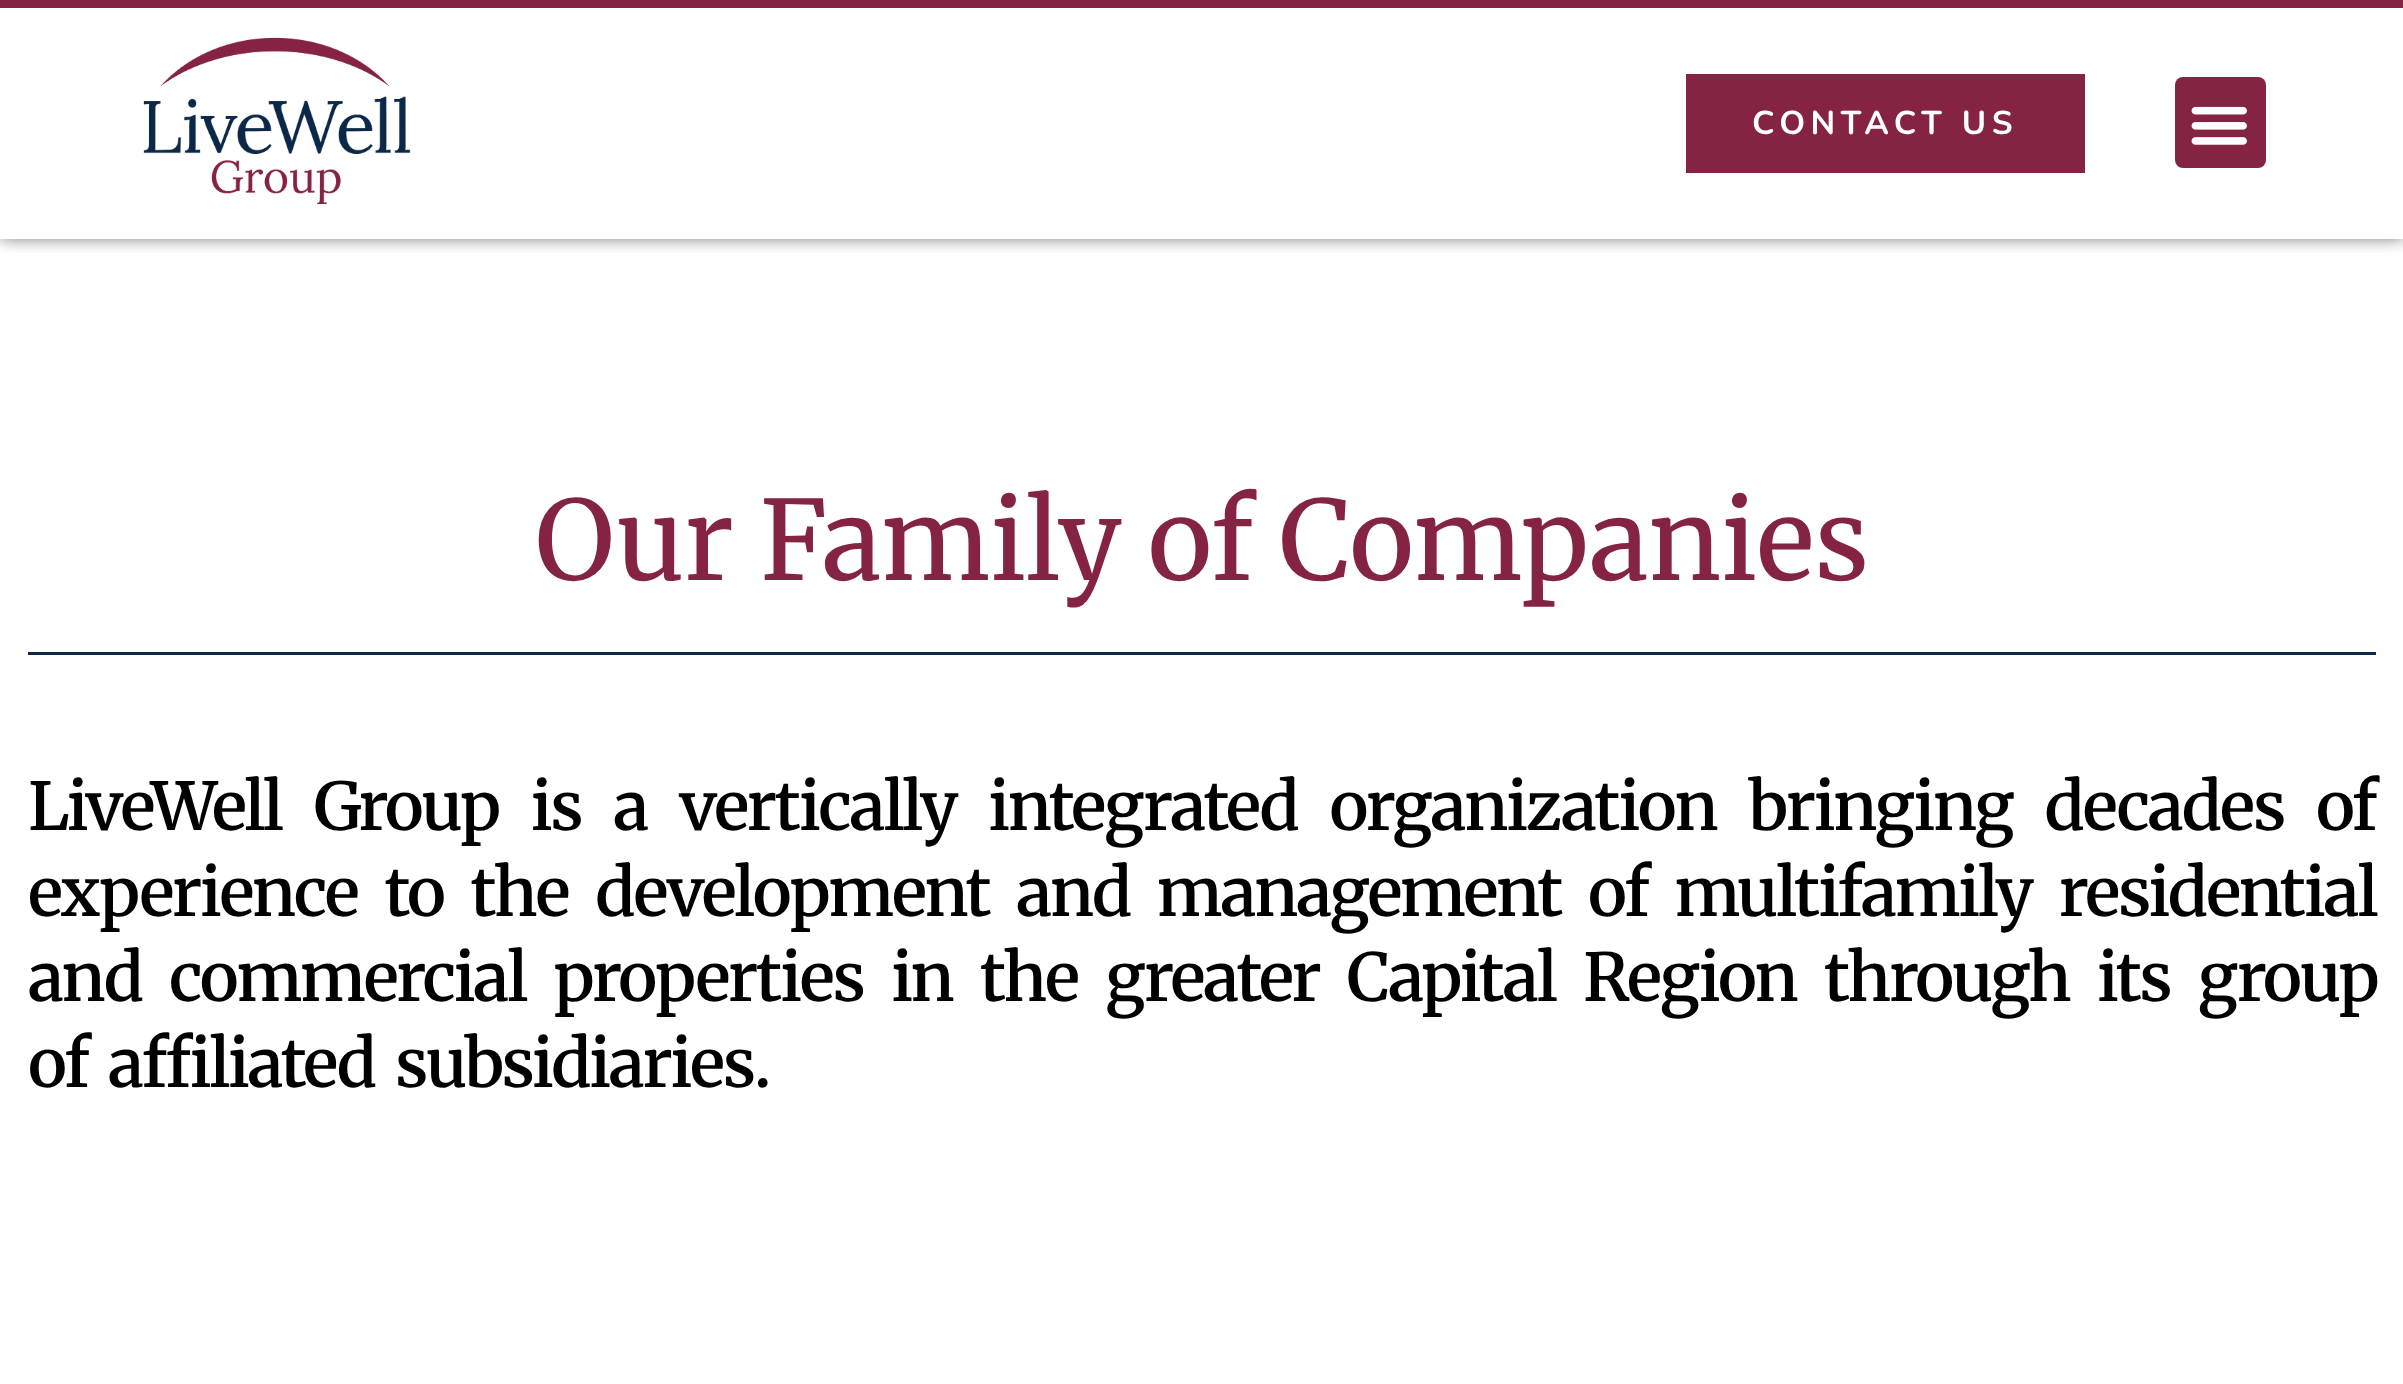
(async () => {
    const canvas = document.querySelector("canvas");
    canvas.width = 2403;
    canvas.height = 1384;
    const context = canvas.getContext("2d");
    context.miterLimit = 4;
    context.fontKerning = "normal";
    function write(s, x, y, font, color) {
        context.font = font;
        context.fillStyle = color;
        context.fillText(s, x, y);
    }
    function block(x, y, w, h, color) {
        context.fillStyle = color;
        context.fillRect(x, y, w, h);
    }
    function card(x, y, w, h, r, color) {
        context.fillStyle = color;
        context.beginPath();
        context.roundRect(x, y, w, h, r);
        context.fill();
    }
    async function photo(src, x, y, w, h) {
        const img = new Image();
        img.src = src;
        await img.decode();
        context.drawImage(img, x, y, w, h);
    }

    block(0, 0, 2403, 1384, "rgb(255, 255, 255)");
    context.save();
    context.beginPath();
    context.rect(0, 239, 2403, 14);
    context.clip();
    context.fillStyle = "rgba(0, 0, 0, 0.5)";
    context.filter = "blur(8px)";
    context.beginPath();
    context.rect(0, 0, 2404, 239);
    context.fill();
    context.filter = "none";
    context.restore();
    block(0, 0, 2403, 8, "rgb(133, 35, 67)");
    await photo("media/1.png", 143, 37, 268, 167);
    block(1686, 74, 399, 99, "rgb(133, 35, 67)");
    context.letterSpacing = "5.5px";
    write("CONTACT US", 1752, 134, "bold 33px Nunito", "rgb(255, 255, 255)");
    card(2175, 77, 91, 91, 8, "rgb(133, 35, 67)");
    await photo("media/2.png", 2191, 106, 56, 39);
    block(28, 652, 2348, 3, "rgb(12, 40, 72)");
    context.letterSpacing = "0px";
    write("Our Family of Companies", 535, 580, "110px Merriweather", "rgb(133, 35, 67)");
    context.letterSpacing = "-2.2px";
    context.wordSpacing = "18.5px";
    write("LiveWell Group is a vertically integrated organization bringing decades of", 28, 830, "600 66px Merriweather", "rgb(0, 0, 0)");
    context.wordSpacing = "13.5px";
    write("experience to the development and management of multifamily residential", 28, 916, "600 66px Merriweather", "rgb(0, 0, 0)");
    context.wordSpacing = "14px";
    write("and commercial properties in the greater Capital Region through its group", 28, 1001, "600 66px Merriweather", "rgb(0, 0, 0)");
    context.wordSpacing = "7px";
    write("of affiliated subsidiaries.", 28, 1087, "600 66px Merriweather", "rgb(0, 0, 0)");
})();
